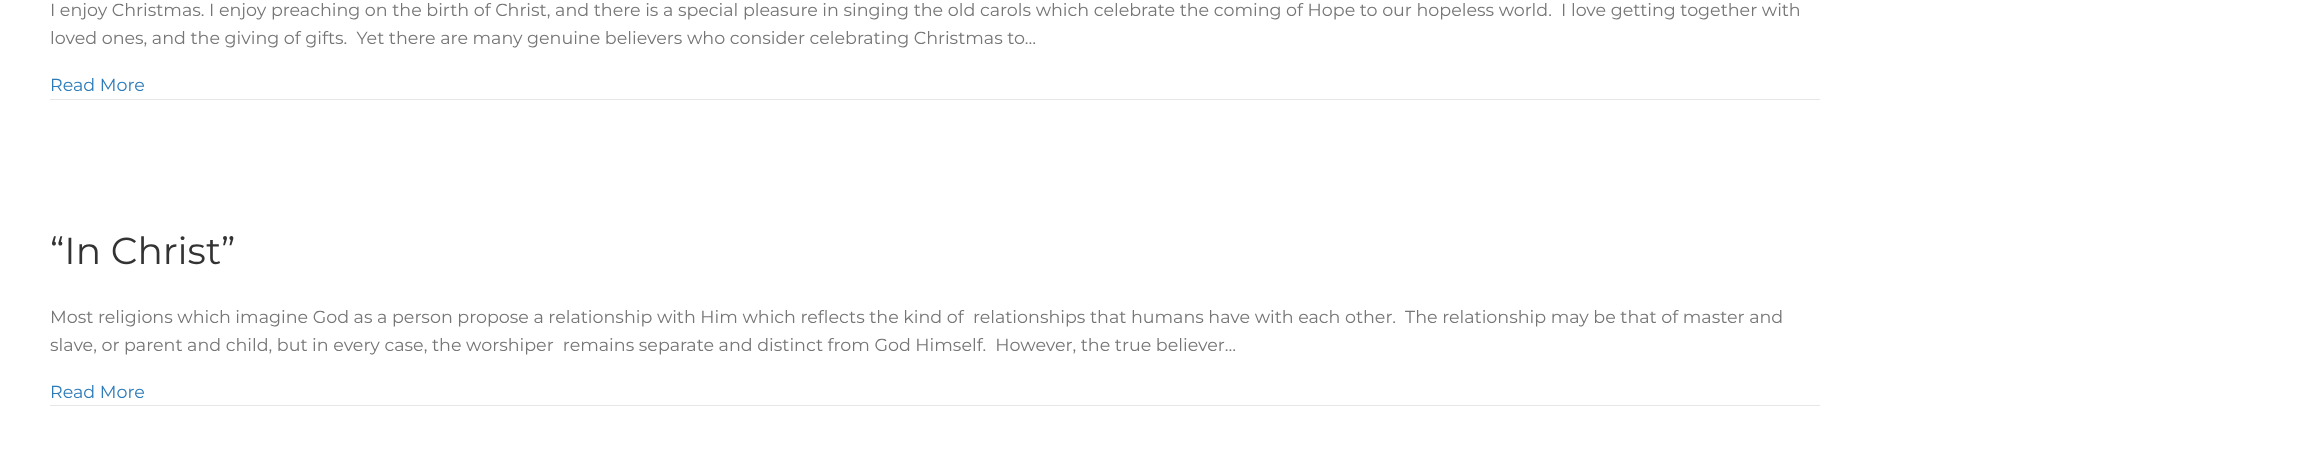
(async () => {
    const canvas = document.querySelector("canvas");
    canvas.width = 2297;
    canvas.height = 473;
    const context = canvas.getContext("2d");
    context.miterLimit = 4;
    context.fontKerning = "normal";
    function write(s, x, y, font, color) {
        context.font = font;
        context.fillStyle = color;
        context.fillText(s, x, y);
    }
    function block(x, y, w, h, color) {
        context.fillStyle = color;
        context.fillRect(x, y, w, h);
    }

    block(0, 0, 2297, 473, "rgb(255, 255, 255)");
    block(50, 99, 1770, 1, "rgb(230, 230, 230)");
    write("I enjoy Christmas. I enjoy preaching on the birth of Christ, and there is a special pleasure in singing the old carols which celebrate the coming of Hope to our hopeless world.  I love getting together with", 50, 16, "17.5px Montserrat", "rgb(117, 117, 117)");
    write("loved ones, and the giving of gifts.  Yet there are many genuine believers who consider celebrating Christmas to…", 50, 44, "17.5px Montserrat", "rgb(117, 117, 117)");
    write("Read More", 50, 91, "17.5px Montserrat", "rgb(43, 123, 185)");
    block(50, 405, 1770, 1, "rgb(230, 230, 230)");
    write("“In Christ”", 50, 264, "37.5px Montserrat", "rgb(51, 51, 51)");
    write("Most religions which imagine God as a person propose a relationship with Him which reflects the kind of  relationships that humans have with each other.  The relationship may be that of master and", 50, 323, "17.5px Montserrat", "rgb(117, 117, 117)");
    write("slave, or parent and child, but in every case, the worshiper  remains separate and distinct from God Himself.  However, the true believer…", 50, 351, "17.5px Montserrat", "rgb(117, 117, 117)");
    write("Read More", 50, 398, "17.5px Montserrat", "rgb(43, 123, 185)");
})();
